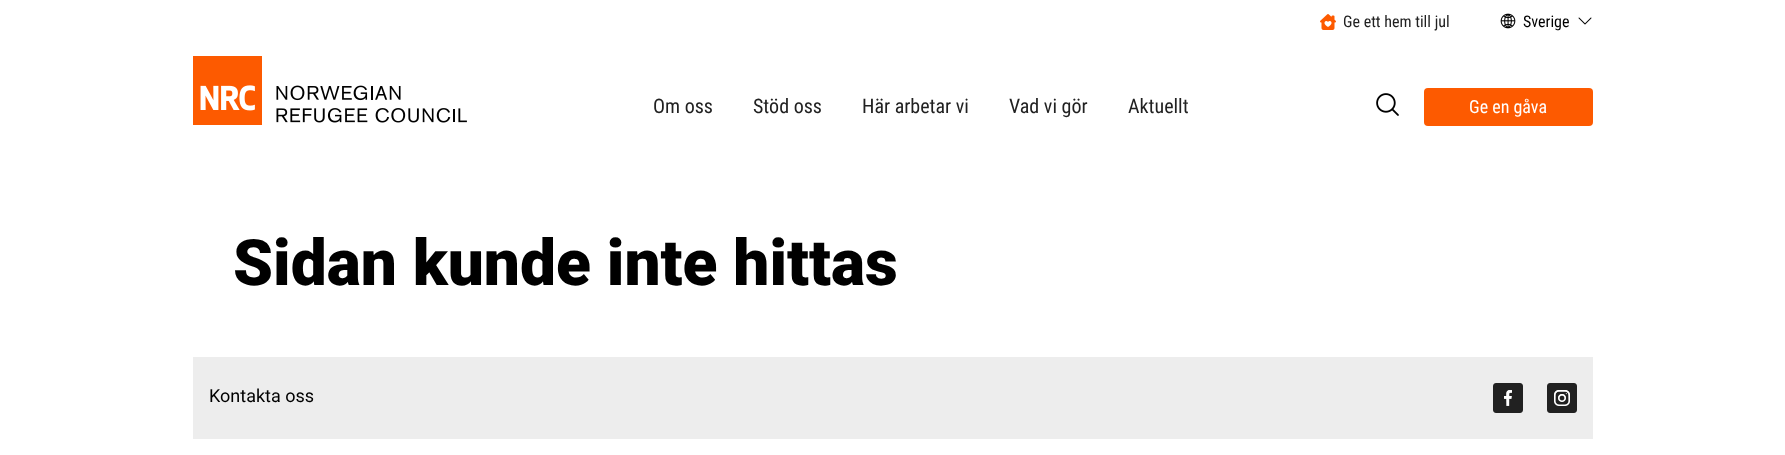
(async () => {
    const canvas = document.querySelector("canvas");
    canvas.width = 1785;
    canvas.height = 455;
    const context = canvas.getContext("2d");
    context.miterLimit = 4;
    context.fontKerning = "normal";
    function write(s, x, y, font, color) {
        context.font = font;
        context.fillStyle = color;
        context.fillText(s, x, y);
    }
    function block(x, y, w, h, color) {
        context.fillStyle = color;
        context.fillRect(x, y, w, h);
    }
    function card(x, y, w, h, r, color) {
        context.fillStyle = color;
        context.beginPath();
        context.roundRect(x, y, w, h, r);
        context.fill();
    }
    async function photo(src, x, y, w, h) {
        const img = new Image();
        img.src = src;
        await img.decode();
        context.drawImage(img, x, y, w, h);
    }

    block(0, 0, 1785, 455, "rgb(255, 255, 255)");
    await photo("media/1.png", 1320, 14, 16, 16);
    write("Ge ett hem till jul", 1343, 27, "16px Roboto Condensed", "rgb(33, 33, 33)");
    await photo("media/2.png", 1500, 13, 16, 16);
    write("Sverige", 1523, 27, "16px Roboto Condensed", "rgb(0, 0, 0)");
    await photo("media/3.png", 1578, 17, 14, 8);
    await photo("media/4.png", 193, 56, 274, 69);
    write("Om oss", 653, 113, "20px Roboto Condensed", "rgb(33, 33, 33)");
    write("Stöd oss", 753, 113, "20px Roboto Condensed", "rgb(33, 33, 33)");
    write("Här arbetar vi", 862, 113, "20px Roboto Condensed", "rgb(33, 33, 33)");
    write("Vad vi gör", 1009, 113, "20px Roboto Condensed", "rgb(33, 33, 33)");
    write("Aktuellt", 1128, 113, "20px Roboto Condensed", "rgb(33, 33, 33)");
    await photo("media/5.png", 1376, 93, 23, 23);
    card(1424, 88, 169, 38, 4, "rgb(253, 90, 0)");
    write("Ge en gåva", 1469, 113, "18px Roboto Condensed", "rgb(255, 255, 255)");
    write("Sidan kunde inte hittas", 233, 285, "900 64px Roboto", "rgb(0, 0, 0)");
    block(193, 357, 1400, 82, "rgb(237, 237, 237)");
    write("Kontakta oss", 209, 402, "18px Roboto", "rgb(0, 0, 0)");
    await photo("media/6.png", 1493, 383, 30, 30);
    await photo("media/7.png", 1547, 383, 30, 30);
})();
